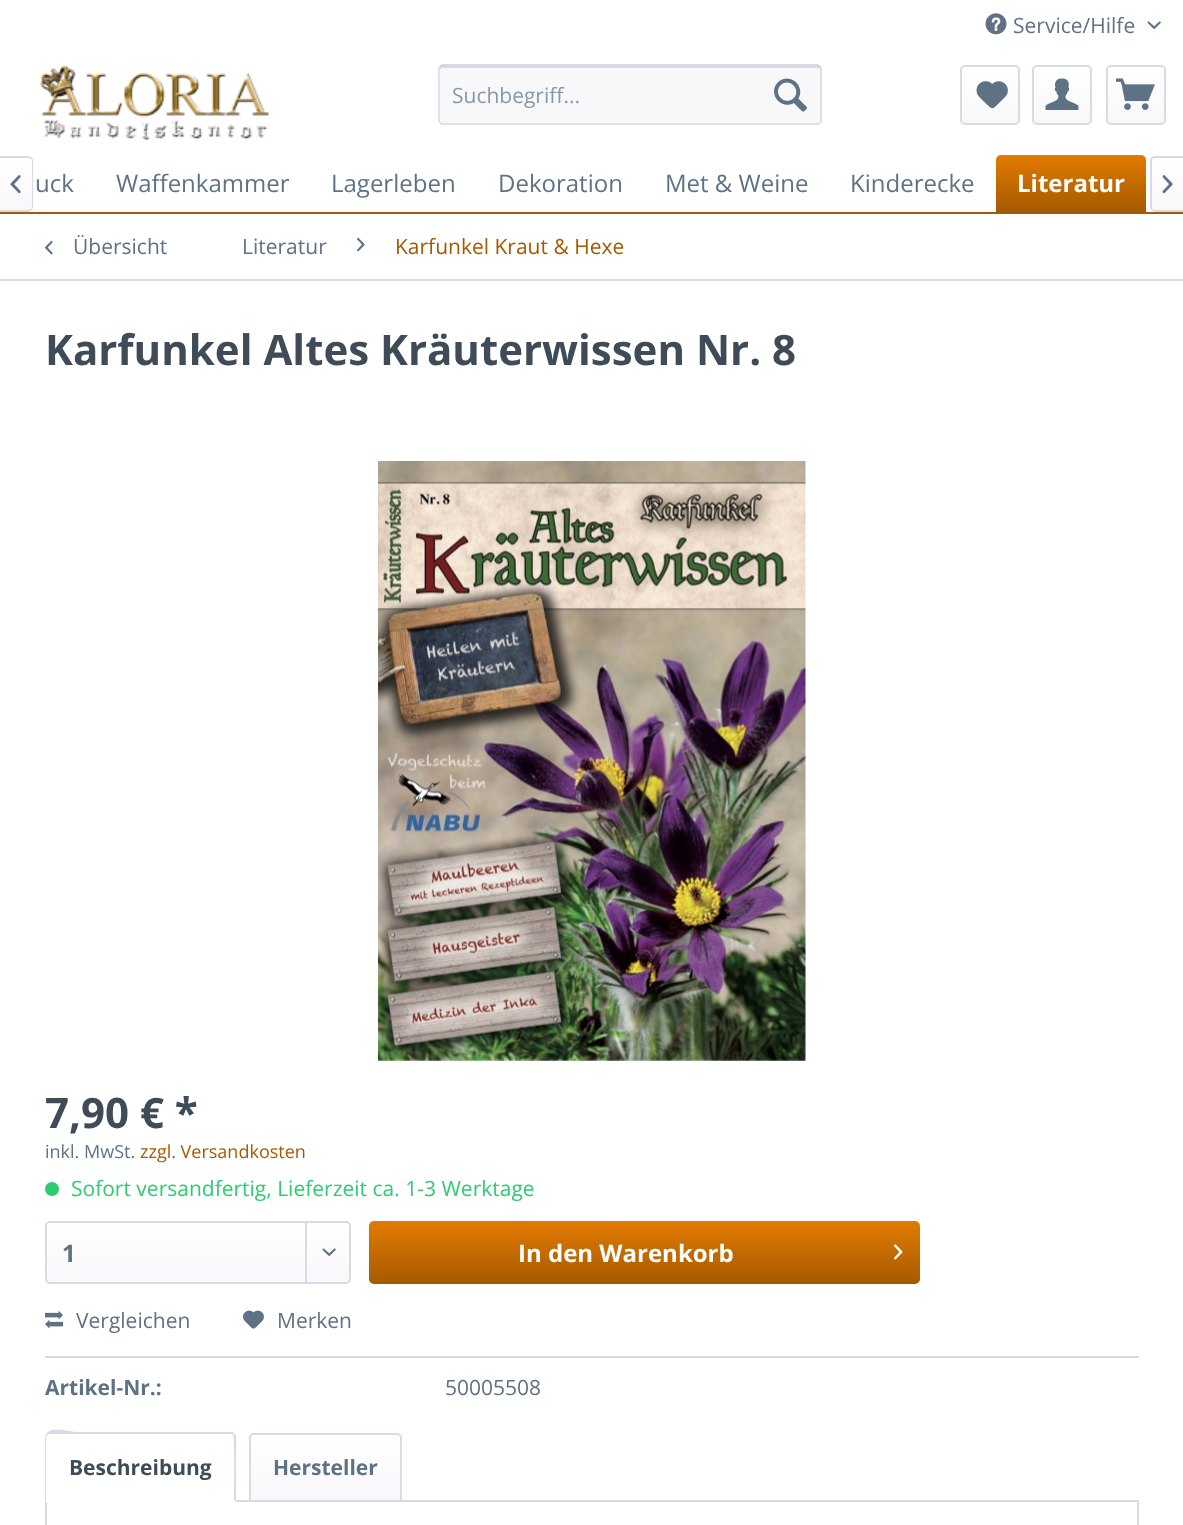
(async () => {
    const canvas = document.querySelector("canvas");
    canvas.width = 1183;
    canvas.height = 1525;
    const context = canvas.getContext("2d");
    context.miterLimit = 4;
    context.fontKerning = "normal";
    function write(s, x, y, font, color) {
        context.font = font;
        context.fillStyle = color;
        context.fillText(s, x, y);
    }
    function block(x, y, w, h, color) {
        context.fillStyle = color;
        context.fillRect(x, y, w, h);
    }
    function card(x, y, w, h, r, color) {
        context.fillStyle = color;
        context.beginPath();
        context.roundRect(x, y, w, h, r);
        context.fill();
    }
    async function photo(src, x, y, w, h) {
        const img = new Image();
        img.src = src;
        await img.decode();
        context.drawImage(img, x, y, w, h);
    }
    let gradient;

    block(0, 0, 1183, 1525, "rgb(255, 255, 255)");
    await photo("media/1.png", 985, 13, 22, 22);
    write("Service/Hilfe", 1013, 33, "21px Open Sans", "rgb(95, 114, 133)");
    await photo("media/2.png", 1147, 21, 14, 8);
    await photo("media/3.png", 40, 65, 229, 75);
    card(438, 65, 384, 60, 5, "rgb(248, 248, 250)");
    context.fillStyle = "rgb(218, 218, 229)";
    context.beginPath();
    context.moveTo(442, 68);
    context.lineTo(818, 68);
    context.bezierCurveTo(819, 68, 820, 69, 820, 70);
    context.lineTo(820, 122);
    context.bezierCurveTo(821, 122, 821, 121, 821, 120);
    context.lineTo(821, 69);
    context.bezierCurveTo(821, 67, 820, 66, 818, 66);
    context.lineTo(443, 66);
    context.bezierCurveTo(441, 66, 440, 67, 440, 69);
    context.lineTo(440, 70);
    context.bezierCurveTo(440, 69, 441, 68, 442, 68);
    context.closePath();
    context.fill();
    context.beginPath();
    context.moveTo(440, 66.5);
    context.lineTo(442.5, 65);
    context.lineTo(817.5, 65);
    context.lineTo(820, 66.5);
    context.strokeStyle = "rgb(203, 203, 219)";
    context.lineWidth = 1.5;
    context.stroke();
    context.beginPath();
    context.moveTo(820, 66.5);
    context.bezierCurveTo(821, 67, 821, 68, 821, 69);
    context.lineTo(821, 120);
    context.bezierCurveTo(821, 121, 821, 122, 820, 122.5);
    context.bezierCurveTo(819.5, 123.5, 818.5, 124, 817.5, 124);
    context.lineTo(442.5, 124);
    context.bezierCurveTo(441.5, 124, 440.5, 123.5, 440, 122.5);
    context.bezierCurveTo(439, 122, 439, 121, 439, 120);
    context.lineTo(439, 69);
    context.bezierCurveTo(439, 68, 439, 67, 440, 66.5);
    context.strokeStyle = "rgb(218, 218, 229)";
    context.stroke();
    write("Suchbegriff...", 452, 103, "21px Open Sans", "rgb(135, 152, 169)");
    await photo("media/4.png", 774, 78, 33, 34);
    gradient = context.createLinearGradient(990, 66, 990, 123);
    gradient.addColorStop(0, "rgb(255, 255, 255)");
    gradient.addColorStop(1, "rgb(248, 248, 250)");
    context.fillStyle = gradient;
    context.beginPath();
    context.roundRect(962, 66, 57, 57, 3);
    context.fill();
    context.beginPath();
    context.roundRect(961, 66, 58, 58, 4);
    context.lineWidth = 2;
    context.stroke();
    await photo("media/5.png", 976, 81, 32, 28);
    gradient = context.createLinearGradient(1062, 66, 1062, 123);
    gradient.addColorStop(0, "rgb(255, 255, 255)");
    gradient.addColorStop(1, "rgb(248, 248, 250)");
    context.fillStyle = gradient;
    context.beginPath();
    context.roundRect(1034, 66, 57, 57, 3);
    context.fill();
    context.beginPath();
    context.roundRect(1033, 66, 58, 58, 4);
    context.stroke();
    await photo("media/6.png", 1045, 78, 34, 32);
    gradient = context.createLinearGradient(1136, 66, 1136, 123);
    gradient.addColorStop(0, "rgb(255, 255, 255)");
    gradient.addColorStop(1, "rgb(248, 248, 250)");
    context.fillStyle = gradient;
    context.beginPath();
    context.roundRect(1107, 66, 57, 57, 3);
    context.fill();
    context.beginPath();
    context.roundRect(1107, 66, 58, 58, 4);
    context.stroke();
    await photo("media/7.png", 1116, 78, 39, 32);
    block(0, 212, 1183, 2, "rgb(165, 90, 0)");
    gradient = context.createLinearGradient(16, 158, 16, 210);
    gradient.addColorStop(0, "rgb(255, 255, 255)");
    gradient.addColorStop(1, "rgb(248, 248, 250)");
    context.fillStyle = gradient;
    context.beginPath();
    context.roundRect(0, 158, 32, 52, [0, 3, 3, 0]);
    context.fill();
    context.fillStyle = "rgb(218, 218, 229)";
    context.beginPath();
    context.moveTo(0, 156);
    context.lineTo(28, 156);
    context.bezierCurveTo(31, 156, 33, 158, 33, 160);
    context.lineTo(33, 207);
    context.bezierCurveTo(33, 209, 31, 212, 28, 212);
    context.lineTo(0, 212);
    context.closePath();
    context.moveTo(0, 158);
    context.lineTo(28, 158);
    context.bezierCurveTo(30, 158, 32, 159, 32, 160);
    context.lineTo(32, 207);
    context.bezierCurveTo(32, 209, 30, 210, 28, 210);
    context.lineTo(0, 210);
    context.closePath();
    context.fill("evenodd");
    await photo("media/8.png", 10, 175, 11, 19);
    write("uck", 35, 192, "24px Open Sans", "rgb(95, 114, 133)");
    write("Waffenkammer", 116, 192, "24px Open Sans", "rgb(95, 114, 133)");
    write("Lagerleben", 331, 192, "24px Open Sans", "rgb(95, 114, 133)");
    write("Dekoration", 498, 192, "24px Open Sans", "rgb(95, 114, 133)");
    write("Met & Weine", 665, 192, "24px Open Sans", "rgb(95, 114, 133)");
    write("Kinderecke", 850, 192, "24px Open Sans", "rgb(95, 114, 133)");
    gradient = context.createLinearGradient(1071, 155, 1071, 212);
    gradient.addColorStop(0, "rgb(226, 123, 0)");
    gradient.addColorStop(1, "rgb(165, 90, 0)");
    context.fillStyle = gradient;
    context.beginPath();
    context.roundRect(996, 155, 150, 57, [5, 5, 0, 0]);
    context.fill();
    write("Literatur", 1017, 192, "bold 24px Open Sans", "rgb(255, 255, 255)");
    gradient = context.createLinearGradient(1168, 158, 1168, 210);
    gradient.addColorStop(0, "rgb(255, 255, 255)");
    gradient.addColorStop(1, "rgb(248, 248, 250)");
    context.fillStyle = gradient;
    context.beginPath();
    context.moveTo(1155, 158);
    context.lineTo(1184, 158);
    context.lineTo(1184, 210);
    context.lineTo(1155, 210);
    context.bezierCurveTo(1153.5, 210, 1152, 208.5, 1152, 207);
    context.lineTo(1152, 161);
    context.bezierCurveTo(1152, 159.5, 1153.5, 158, 1155, 158);
    context.closePath();
    context.fill();
    context.fillStyle = "rgb(218, 218, 229)";
    context.beginPath();
    context.moveTo(1155, 156);
    context.lineTo(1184, 156);
    context.lineTo(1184, 212);
    context.lineTo(1155, 212);
    context.bezierCurveTo(1153, 212, 1150, 209, 1150, 207);
    context.lineTo(1150, 160);
    context.bezierCurveTo(1150, 158, 1153, 156, 1155, 156);
    context.closePath();
    context.moveTo(1155, 158);
    context.lineTo(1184, 158);
    context.lineTo(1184, 210);
    context.lineTo(1155, 210);
    context.bezierCurveTo(1153, 210, 1152, 209, 1152, 207);
    context.lineTo(1152, 160);
    context.bezierCurveTo(1152, 159, 1153, 158, 1155, 158);
    context.closePath();
    context.fill("evenodd");
    await photo("media/9.png", 1162, 175, 11, 19);
    block(0, 279, 1183, 2, "rgb(218, 218, 229)");
    await photo("media/10.png", 45, 240, 8, 15);
    write("Übersicht", 73, 254, "21px Open Sans", "rgb(95, 114, 133)");
    write("Literatur", 242, 254, "21px Open Sans", "rgb(95, 114, 133)");
    await photo("media/11.png", 357, 237, 8, 15);
    write("Karfunkel Kraut & Hexe", 395, 254, "21px Open Sans", "rgb(165, 90, 0)");
    write("Karfunkel Altes Kräuterwissen Nr. 8", 45, 365, "bold 42px Open Sans", "rgb(63, 76, 88)");
    await photo("media/12.png", 378, 461, 428, 600);
    write("7,90 € *", 45, 1128, "bold 42px Open Sans", "rgb(63, 76, 88)");
    write("inkl. MwSt.", 45, 1158, "18px Open Sans", "rgb(95, 114, 133)");
    write("zzgl. Versandkosten", 140, 1158, "18px Open Sans", "rgb(165, 90, 0)");
    context.fillStyle = "rgb(46, 204, 113)";
    context.beginPath();
    context.arc(52, 1189, 7, 0, Math.PI * 2);
    context.fill();
    write("Sofort versandfertig, Lieferzeit ca. 1-3 Werktage", 71, 1196, "21px Open Sans", "rgb(46, 204, 113)");
    gradient = context.createLinearGradient(198, 1223, 198, 1283);
    gradient.addColorStop(0, "rgb(255, 255, 255)");
    gradient.addColorStop(1, "rgb(248, 248, 250)");
    context.fillStyle = gradient;
    context.beginPath();
    context.roundRect(47, 1223, 303, 60, 3);
    context.fill();
    context.beginPath();
    context.roundRect(46, 1222, 304, 61, 4);
    context.stroke();
    write("1", 62, 1262, "bold 24px Open Sans", "rgb(95, 114, 133)");
    block(305, 1223, 2, 60, "rgb(218, 218, 229)");
    await photo("media/13.png", 322, 1248, 14, 8);
    gradient = context.createLinearGradient(644, 1221, 644, 1284);
    gradient.addColorStop(0, "rgb(226, 123, 0)");
    gradient.addColorStop(1, "rgb(165, 90, 0)");
    context.fillStyle = gradient;
    context.beginPath();
    context.roundRect(369, 1221, 551, 63, 5);
    context.fill();
    write("In den Warenkorb", 518, 1262, "bold 24px Open Sans", "rgb(255, 255, 255)");
    await photo("media/14.png", 894, 1244, 9, 16);
    block(45, 1356, 1094, 2, "rgb(218, 218, 229)");
    await photo("media/15.png", 45, 1310, 18, 19);
    write("Vergleichen", 76, 1328, "21px Open Sans", "rgb(95, 114, 133)");
    await photo("media/16.png", 243, 1310, 21, 19);
    write("Merken", 277, 1328, "21px Open Sans", "rgb(95, 114, 133)");
    write("Artikel-Nr.:", 45, 1395, "bold 21px Open Sans", "rgb(95, 114, 133)");
    write("50005508", 445, 1395, "21px Open Sans", "rgb(95, 114, 133)");
    context.strokeRect(46, 1501, 1092, 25);
    context.fillStyle = "rgb(255, 255, 255)";
    context.beginPath();
    context.roundRect(45, 1433, 191, 69, [5, 5, 0, 0]);
    context.fill();
    context.fillStyle = "rgb(218, 218, 229)";
    context.beginPath();
    context.moveTo(50, 1434);
    context.lineTo(47, 1435);
    context.lineTo(46, 1434);
    context.bezierCurveTo(53, 1425, 68, 1432, 79, 1432);
    context.lineTo(233, 1432);
    context.lineTo(234, 1434);
    context.lineTo(233, 1435);
    context.lineTo(231, 1434);
    context.closePath();
    context.fill();
    context.beginPath();
    context.moveTo(234, 1434);
    context.lineTo(236, 1435);
    context.lineTo(236, 1502);
    context.lineTo(234, 1500);
    context.bezierCurveTo(234, 1493, 235, 1436, 233, 1435);
    context.closePath();
    context.fill();
    context.fillStyle = "rgb(255, 255, 255)";
    context.beginPath();
    context.moveTo(236, 1502);
    context.lineTo(234, 1500);
    context.lineTo(46, 1500);
    context.lineTo(45, 1502);
    context.closePath();
    context.fill();
    context.fillStyle = "rgb(218, 218, 229)";
    context.beginPath();
    context.moveTo(45, 1502);
    context.lineTo(46, 1500);
    context.lineTo(46, 1437);
    context.lineTo(47, 1435);
    context.lineTo(46, 1434);
    context.lineTo(45, 1437);
    context.closePath();
    context.fill();
    write("Beschreibung", 69, 1475, "bold 21px Open Sans", "rgb(63, 76, 88)");
    gradient = context.createLinearGradient(326, 1434, 326, 1500);
    gradient.addColorStop(0, "rgb(255, 255, 255)");
    gradient.addColorStop(1, "rgb(248, 248, 250)");
    context.fillStyle = gradient;
    context.beginPath();
    context.roundRect(251, 1434, 150, 66, [3, 3, 0, 0]);
    context.fill();
    context.beginPath();
    context.roundRect(250, 1434, 151, 67, [4, 4, 0, 0]);
    context.stroke();
    write("Hersteller", 273, 1475, "bold 21px Open Sans", "rgb(95, 114, 133)");
})();
